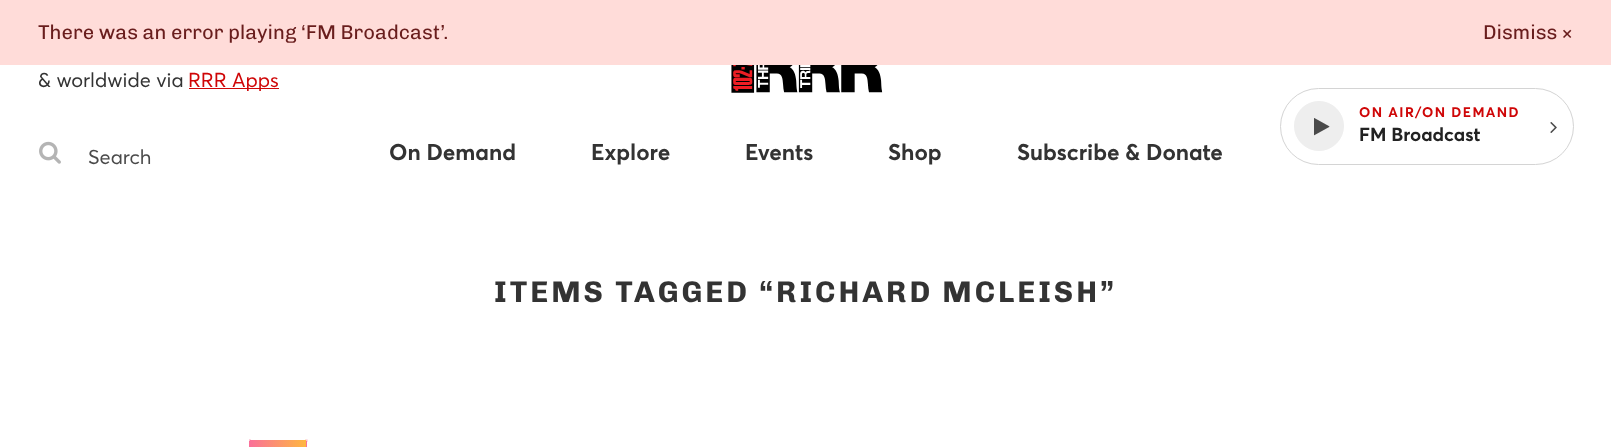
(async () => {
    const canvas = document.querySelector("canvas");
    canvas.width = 1611;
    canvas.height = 447;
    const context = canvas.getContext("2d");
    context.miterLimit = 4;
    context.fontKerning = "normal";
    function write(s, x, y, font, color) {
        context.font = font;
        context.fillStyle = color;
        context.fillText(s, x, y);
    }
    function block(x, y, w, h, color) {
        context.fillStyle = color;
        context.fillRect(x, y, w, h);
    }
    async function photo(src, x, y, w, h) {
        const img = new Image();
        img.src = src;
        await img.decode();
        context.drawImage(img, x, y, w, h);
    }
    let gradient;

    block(0, 0, 1611, 447, "rgb(255, 255, 255)");
    block(0, 0, 1611, 65, "rgb(255, 220, 217)");
    write("There was an error playing ‘FM Broadcast’.", 38, 39, "20px Chivo", "rgb(105, 29, 29)");
    write("Dismiss", 1483, 39, "20px Chivo", "rgb(105, 29, 29)");
    write("×", 1561, 39, "20px Chivo", "rgb(105, 29, 29)");
    write("& worldwide via", 38, 87, "20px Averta", "rgb(51, 51, 51)");
    block(189, 88, 90, 1, "rgb(207, 6, 7)");
    write("RRR Apps", 188, 87, "20px Averta", "rgb(207, 6, 7)");
    await photo("media/1.png", 39, 141, 22, 23);
    write("Search", 88, 164, "20px Averta", "rgb(74, 74, 74)");
    await photo("media/2.png", 731, 65, 152, 28);
    context.beginPath();
    context.roundRect(1280.5, 88.5, 293, 76, 38);
    context.strokeStyle = "rgb(212, 212, 212)";
    context.stroke();
    context.fillStyle = "rgb(238, 238, 238)";
    context.beginPath();
    context.arc(1319, 126, 24.5, 0, Math.PI * 2);
    context.fill();
    context.strokeStyle = "rgb(238, 238, 238)";
    context.stroke();
    await photo("media/3.png", 1314, 118, 16, 18);
    context.letterSpacing = "1.4px";
    write("ON AIR/ON DEMAND", 1359, 117, "bold 13.75px Averta", "rgb(207, 6, 7)");
    context.letterSpacing = "0px";
    write("FM Broadcast", 1359, 141, "bold 18.75px Averta", "rgb(34, 34, 34)");
    await photo("media/4.png", 1550, 122, 7, 11);
    write("On Demand", 389, 160, "bold 22.5px Averta", "rgb(51, 51, 51)");
    write("Explore", 591, 160, "bold 22.5px Averta", "rgb(51, 51, 51)");
    write("Events", 745, 160, "bold 22.5px Averta", "rgb(51, 51, 51)");
    write("Shop", 888, 160, "bold 22.5px Averta", "rgb(51, 51, 51)");
    write("Subscribe & Donate", 1017, 160, "bold 22.5px Averta", "rgb(51, 51, 51)");
    context.letterSpacing = "3px";
    write("ITEMS TAGGED “RICHARD MCLEISH”", 494, 302, "bold 30px Chivo", "rgb(51, 51, 51)");
    gradient = context.createLinearGradient(249, 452, 306, 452);
    gradient.addColorStop(0, "rgb(250, 112, 154)");
    gradient.addColorStop(1, "rgb(254, 183, 64)");
    context.fillStyle = gradient;
    context.fillRect(249, 439, 57, 8);
    context.save();
    context.beginPath();
    context.roundRect(248, 439, 60, 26, 2.5);
    context.clip();
    gradient = context.createLinearGradient(306, 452, 364, 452);
    gradient.addColorStop(0, "rgb(250, 112, 154)");
    gradient.addColorStop(1, "rgb(254, 183, 64)");
    context.fillStyle = gradient;
    context.fillRect(306, 439, 2, 8);
    context.restore();
    context.beginPath();
    context.roundRect(248.5, 439.5, 59, 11, 2);
    context.strokeStyle = "rgb(255, 255, 255)";
    context.stroke();
})();
